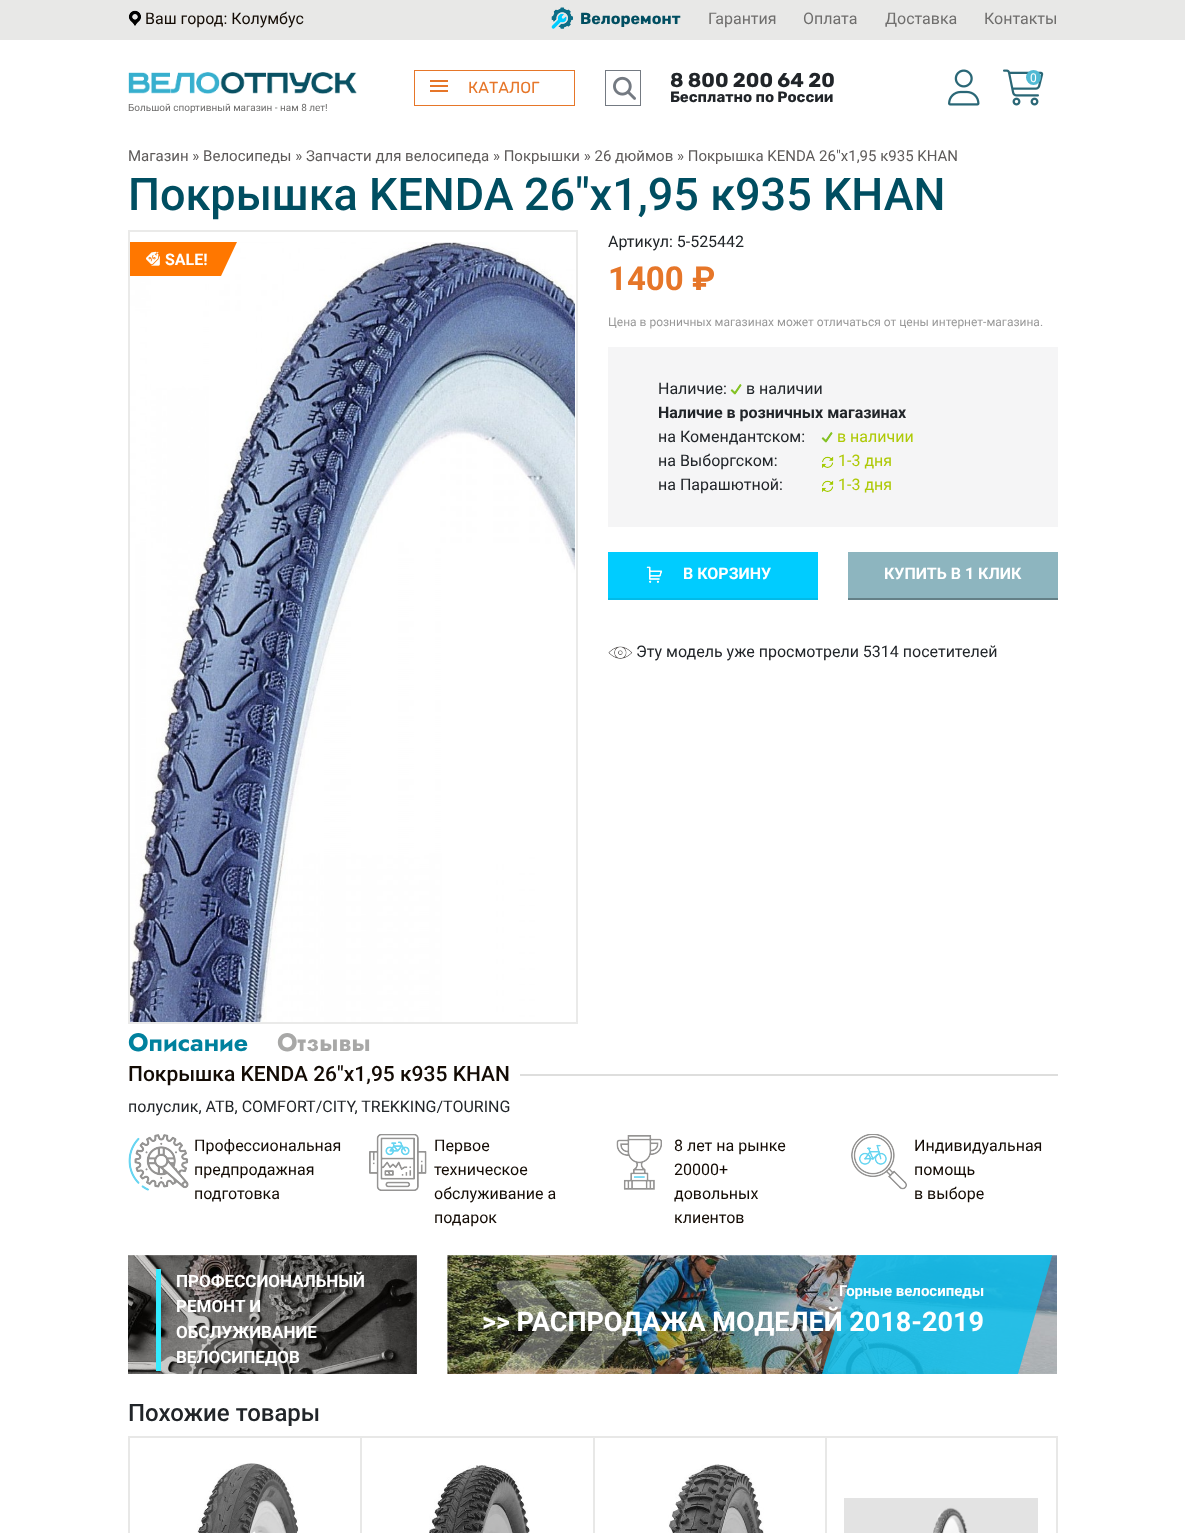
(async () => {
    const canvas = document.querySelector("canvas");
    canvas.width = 1185;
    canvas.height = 1533;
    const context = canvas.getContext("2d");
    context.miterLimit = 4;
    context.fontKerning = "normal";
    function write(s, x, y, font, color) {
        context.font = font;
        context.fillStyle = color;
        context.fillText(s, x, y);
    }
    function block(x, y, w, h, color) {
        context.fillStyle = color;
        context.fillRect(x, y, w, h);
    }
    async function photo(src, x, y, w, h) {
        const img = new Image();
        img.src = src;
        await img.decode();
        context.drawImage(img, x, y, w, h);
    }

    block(0, 0, 1185, 1533, "rgb(255, 255, 255)");
    block(0, 0, 1185, 40, "rgb(232, 232, 231)");
    await photo("media/1.png", 128, 10, 13, 16);
    write("Ваш город: Колумбус", 145, 24, "16px 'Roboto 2'", "rgb(19, 11, 4)");
    await photo("media/2.png", 551, 7, 22, 22);
    write("Велоремонт", 580, 24, "bold 16px Rubik", "rgb(0, 78, 97)");
    write("Гарантия", 708, 24, "16px 'Roboto 2'", "rgb(111, 110, 109)");
    write("Оплата", 803, 24, "16px 'Roboto 2'", "rgb(111, 110, 109)");
    write("Доставка", 885, 24, "16px 'Roboto 2'", "rgb(111, 110, 109)");
    write("Контакты", 984, 24, "16px 'Roboto 2'", "rgb(111, 110, 109)");
    context.strokeStyle = "rgb(230, 118, 41)";
    context.strokeRect(414.5, 70.5, 160, 35);
    block(430, 85, 18, 2, "rgb(230, 118, 41)");
    block(430, 80, 18, 2, "rgb(230, 118, 41)");
    block(430, 90, 18, 2, "rgb(230, 118, 41)");
    write("КАТАЛОГ", 468, 93, "16px Rubik", "rgb(230, 118, 41)");
    context.strokeStyle = "rgb(116, 122, 130)";
    context.strokeRect(605.5, 70.5, 35, 35);
    await photo("media/3.png", 613, 76, 23, 24);
    await photo("media/4.png", 128, 72, 229, 22);
    write("Большой спортивный магазин - нам 8 лет!", 128, 111, "10px Roboto", "rgb(111, 110, 109)");
    write("8 800 200 64 20", 670, 87, "bold 20px Rubik", "rgb(33, 37, 41)");
    write("Бесплатно по России", 670, 102, "bold 15px Rubik", "rgb(33, 37, 41)");
    await photo("media/5.png", 948, 69, 32, 37);
    await photo("media/6.png", 1003, 69, 41, 37);
    context.fillStyle = "rgb(81, 186, 212)";
    context.beginPath();
    context.arc(1033.5, 77.5, 7.5, 0, Math.PI * 2);
    context.fill();
    write("0", 1030, 82, "12px Roboto", "rgb(255, 255, 255)");
    write("Магазин » Велосипеды » Запчасти для велосипеда » Покрышки » 26 дюймов » Покрышка KENDA 26\"х1,95 к935 KHAN", 128, 161, "15px Roboto", "rgb(93, 90, 89)");
    write("Покрышка KENDA", 128, 210, "500 45px Roboto", "rgb(0, 78, 97)");
    write("26\"х1,95 к935 KHAN", 524, 210, "500 45px Roboto", "rgb(0, 78, 97)");
    context.strokeStyle = "rgb(234, 234, 233)";
    context.lineWidth = 2;
    context.strokeRect(129, 231, 448, 792);
    await photo("media/7.png", 130, 242, 445, 780);
    context.fillStyle = "rgb(255, 119, 0)";
    context.beginPath();
    context.moveTo(130, 242);
    context.lineTo(237, 242);
    context.lineTo(221, 276);
    context.lineTo(130, 276);
    context.closePath();
    context.fill();
    await photo("media/8.png", 146, 251, 14, 15);
    write("SALE!", 165, 265, "bold 16px Roboto", "rgb(255, 255, 255)");
    write("Артикул: 5-525442", 608, 247, "16px 'Roboto 2'", "rgb(33, 37, 41)");
    write("1400 ₽", 608, 290, "bold 33px Roboto", "rgb(230, 118, 41)");
    write("Цена в розничных магазинах может отличаться от цены интернет-магазина.", 608, 326, "12px Roboto", "rgb(153, 153, 153)");
    block(608, 347, 450, 180, "rgb(245, 245, 246)");
    write("Наличие:", 658, 394, "16px 'Roboto 2'", "rgb(33, 37, 41)");
    await photo("media/9.png", 730, 384, 12, 11);
    write("в наличии", 746, 394, "16px 'Roboto 2'", "rgb(33, 37, 41)");
    write("Наличие в розничных магазинах", 658, 418, "bold 16px Roboto", "rgb(33, 37, 41)");
    write("на Комендантском:", 658, 442, "16px 'Roboto 2'", "rgb(33, 37, 41)");
    await photo("media/9.png", 821, 432, 12, 11);
    write("в наличии", 837, 442, "16px 'Roboto 2'", "rgb(174, 201, 5)");
    write("на Выборгском:", 658, 466, "16px 'Roboto 2'", "rgb(33, 37, 41)");
    await photo("media/10.png", 822, 456, 12, 12);
    write("1-3 дня", 838, 466, "16px 'Roboto 2'", "rgb(174, 201, 5)");
    write("на Парашютной:", 658, 490, "16px 'Roboto 2'", "rgb(33, 37, 41)");
    await photo("media/10.png", 822, 480, 12, 12);
    write("1-3 дня", 838, 490, "16px 'Roboto 2'", "rgb(174, 201, 5)");
    block(608, 552, 210, 46, "rgb(0, 204, 255)");
    block(608, 598, 210, 2, "rgb(2, 187, 232)");
    await photo("media/11.png", 646, 566, 17, 17);
    write("В КОРЗИНУ", 683, 579, "bold 16px Roboto", "rgb(255, 255, 255)");
    block(848, 552, 210, 46, "rgb(141, 181, 191)");
    block(848, 598, 210, 2, "rgb(100, 128, 135)");
    write("КУПИТЬ В 1 КЛИК", 884, 579, "bold 16px Roboto", "rgb(255, 255, 255)");
    await photo("media/12.png", 608, 646, 25, 13);
    write("Эту модель уже просмотрели 5314 посетителей", 636, 657, "16px 'Roboto 2'", "rgb(33, 37, 41)");
    write("Описание", 128, 1051, "bold 25px Jost", "rgb(0, 129, 158)");
    write("Отзывы", 277, 1051, "bold 25px Jost", "rgb(168, 168, 167)");
    write("Покрышка KENDA 26\"х1,95 к935 KHAN", 128, 1081, "500 21px Roboto", "rgb(19, 11, 4)");
    block(520, 1074, 538, 2, "rgb(222, 222, 221)");
    write("полуслик, ATB, COMFORT/CITY, TREKKING/TOURING", 128, 1112, "16px 'Roboto 2'", "rgb(33, 37, 41)");
    await photo("media/13.png", 128, 1134, 61, 57);
    write("Профессиональная", 194, 1151, "16px 'Roboto 2'", "rgb(19, 11, 4)");
    write("предпродажная", 194, 1175, "16px 'Roboto 2'", "rgb(19, 11, 4)");
    write("подготовка", 194, 1199, "16px 'Roboto 2'", "rgb(19, 11, 4)");
    await photo("media/14.png", 369, 1134, 58, 57);
    write("Первое", 434, 1151, "16px 'Roboto 2'", "rgb(19, 11, 4)");
    write("техническое", 434, 1175, "16px 'Roboto 2'", "rgb(19, 11, 4)");
    write("обслуживание а", 434, 1199, "16px 'Roboto 2'", "rgb(19, 11, 4)");
    write("подарок", 434, 1223, "16px 'Roboto 2'", "rgb(19, 11, 4)");
    await photo("media/15.png", 616, 1135, 46, 55);
    write("8 лет на рынке", 674, 1151, "16px 'Roboto 2'", "rgb(19, 11, 4)");
    write("20000+", 674, 1175, "16px 'Roboto 2'", "rgb(19, 11, 4)");
    write("довольных", 674, 1199, "16px 'Roboto 2'", "rgb(19, 11, 4)");
    write("клиентов", 674, 1223, "16px 'Roboto 2'", "rgb(19, 11, 4)");
    await photo("media/16.png", 851, 1134, 56, 56);
    write("Индивидуальная", 914, 1151, "16px 'Roboto 2'", "rgb(19, 11, 4)");
    write("помощь", 914, 1175, "16px 'Roboto 2'", "rgb(19, 11, 4)");
    write("в выборе", 914, 1199, "16px 'Roboto 2'", "rgb(19, 11, 4)");
    await photo("media/17.png", 128, 1255, 289, 119);
    block(156, 1269, 5, 102, "rgb(51, 235, 255)");
    write("ПРОФЕССИОНАЛЬНЫЙ", 176, 1287, "bold 17px Roboto", "rgb(255, 255, 255)");
    write("РЕМОНТ И", 176, 1312, "bold 17px Roboto", "rgb(255, 255, 255)");
    write("ОБСЛУЖИВАНИЕ", 176, 1338, "bold 17px Roboto", "rgb(255, 255, 255)");
    write("ВЕЛОСИПЕДОВ", 176, 1363, "bold 17px Roboto", "rgb(255, 255, 255)");
    await photo("media/18.png", 447, 1255, 610, 119);
    context.fillStyle = "rgba(14, 192, 237, 0.85)";
    context.beginPath();
    context.moveTo(1052, 1256);
    context.lineTo(1018, 1374);
    context.lineTo(822, 1374);
    context.lineTo(857, 1255);
    context.lineTo(1052, 1255);
    context.closePath();
    context.fill();
    write("Горные велосипеды", 839, 1296, "bold 15px Roboto", "rgb(255, 255, 255)");
    write(">> РАСПРОДАЖА МОДЕЛЕЙ 2018-2019", 482, 1331, "bold 27px Roboto", "rgb(255, 255, 255)");
    write("Похожие товары", 128, 1421, "500 24px Roboto", "rgb(33, 37, 41)");
    block(128, 1436, 697, 2, "rgb(232, 232, 231)");
    block(128, 1436, 2, 97, "rgb(232, 232, 231)");
    await photo("media/19.png", 197, 1463, 102, 70);
    block(360, 1436, 2, 97, "rgb(232, 232, 231)");
    await photo("media/20.png", 429, 1465, 101, 68);
    block(593, 1436, 2, 97, "rgb(232, 232, 231)");
    await photo("media/21.png", 668, 1464, 96, 69);
    context.strokeStyle = "rgb(232, 232, 231)";
    context.strokeRect(826, 1437, 231, 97);
    await photo("media/22.png", 844, 1498, 194, 35);
})();
